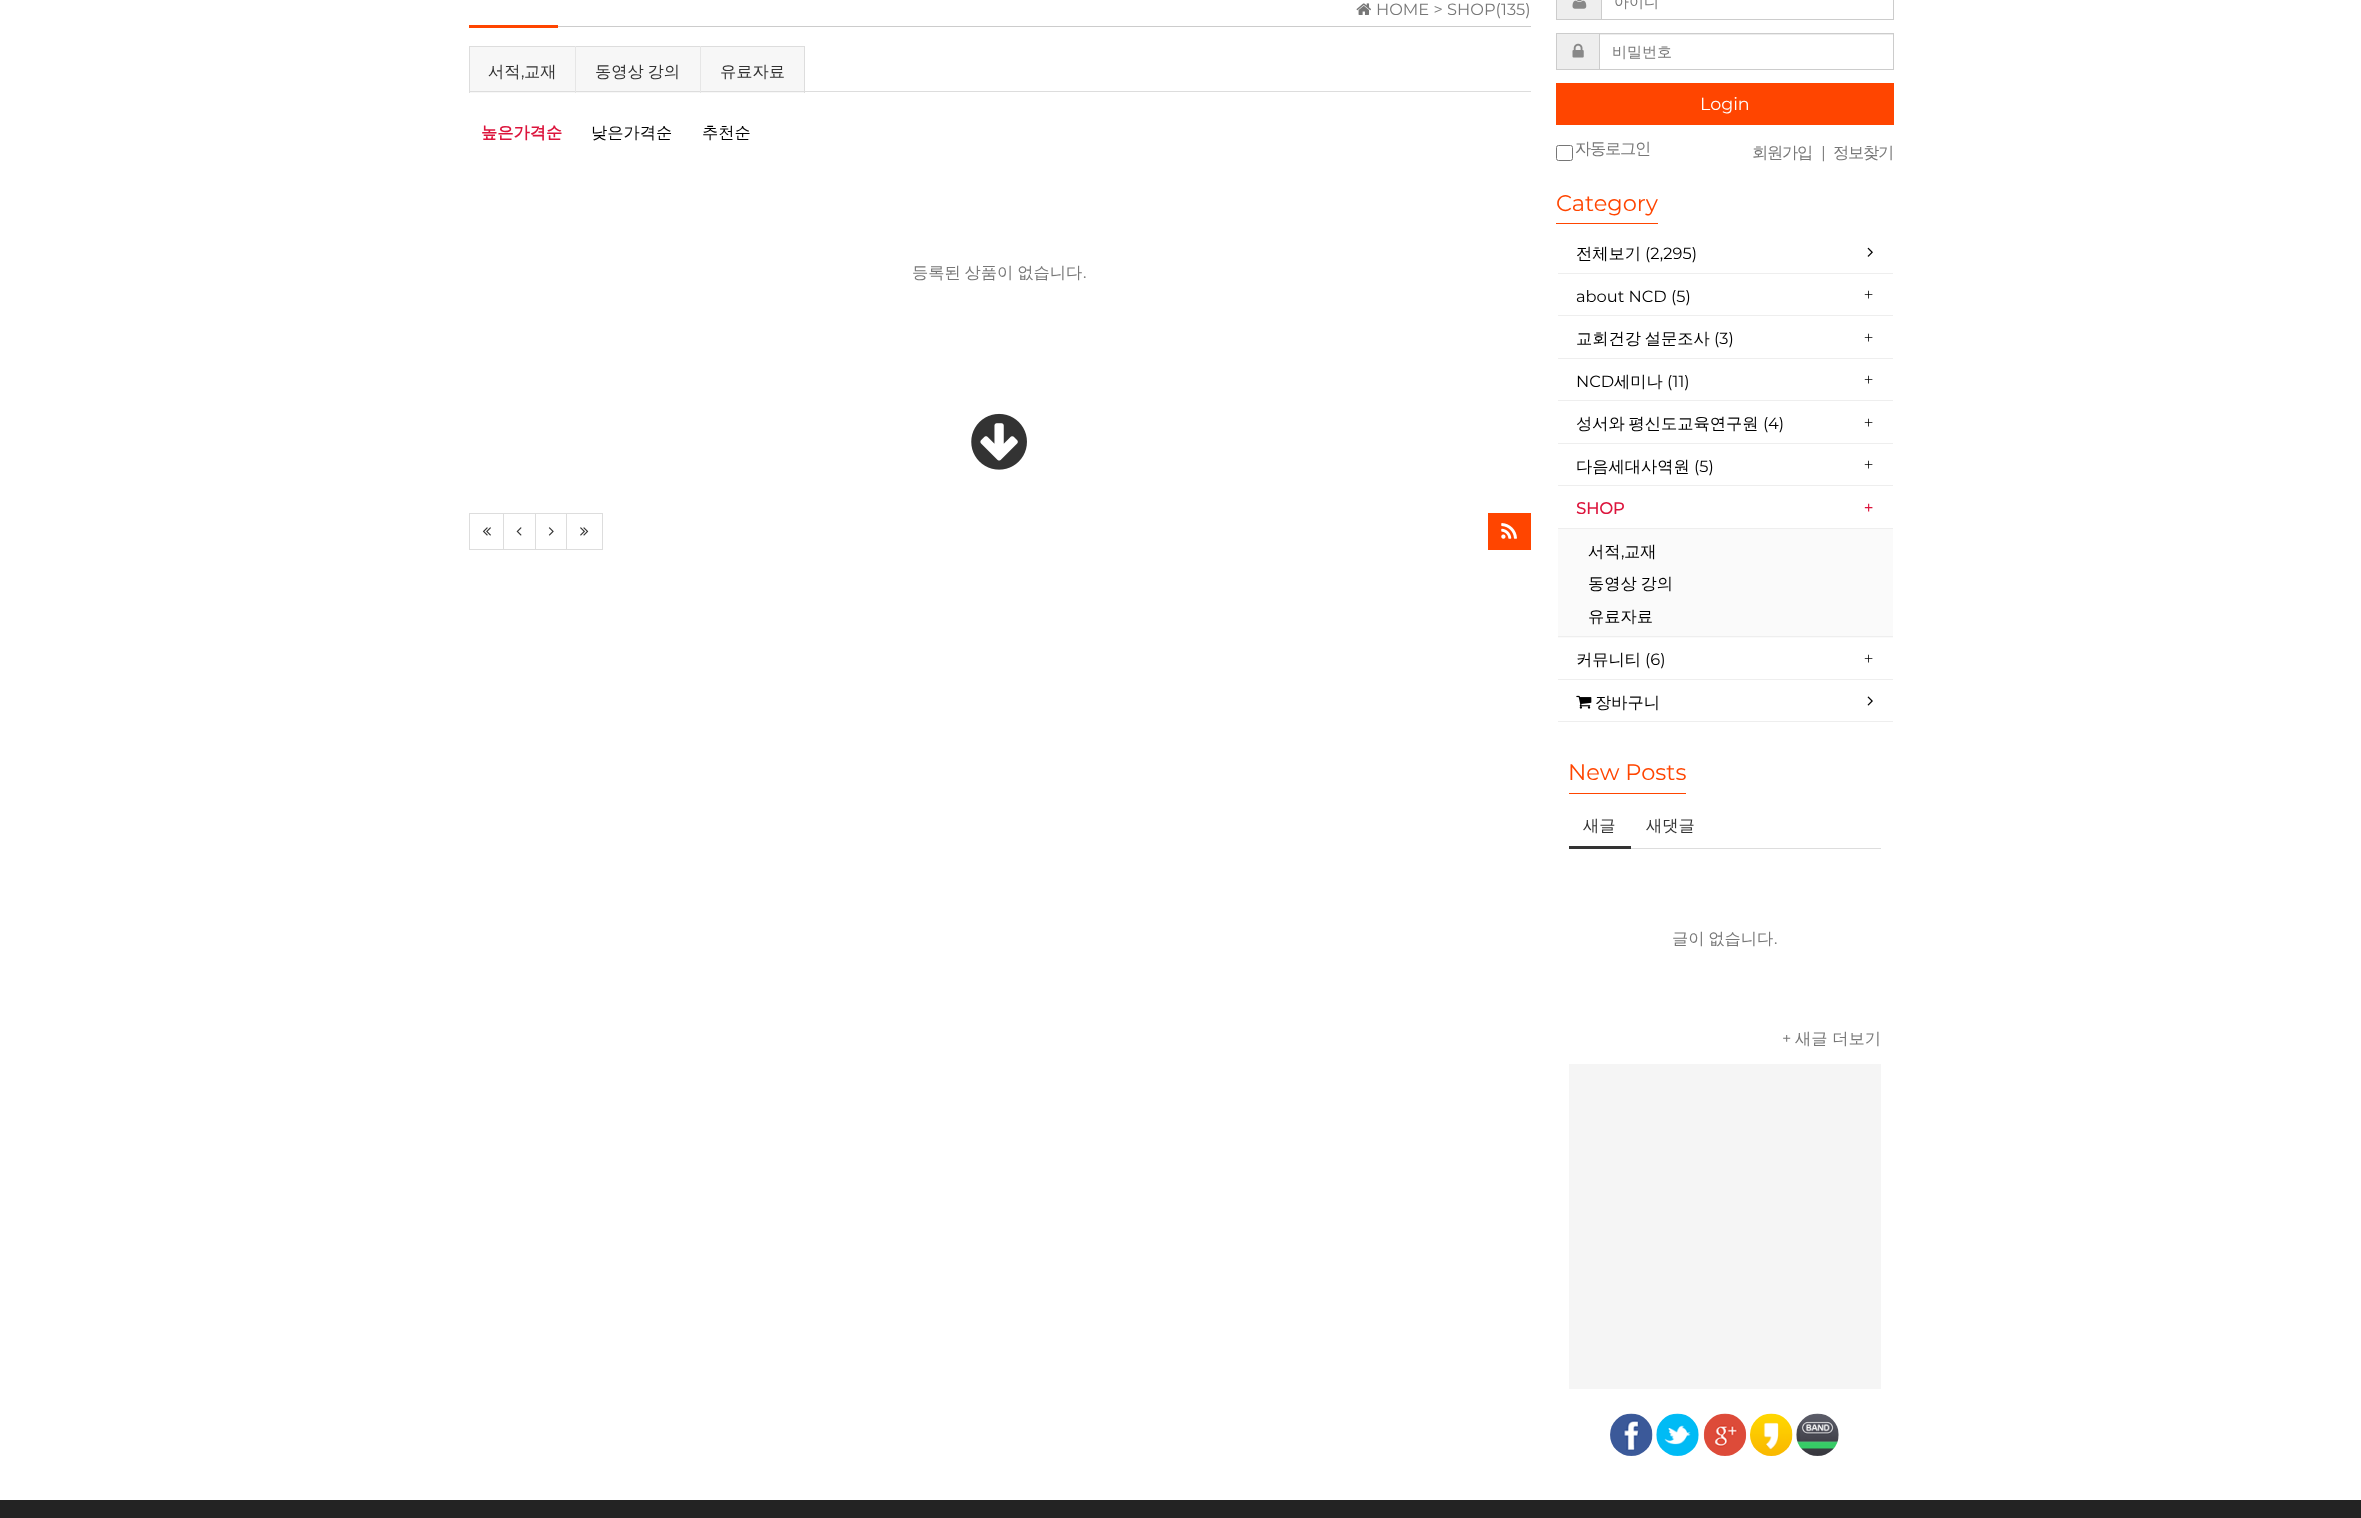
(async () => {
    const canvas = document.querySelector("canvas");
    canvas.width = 2361;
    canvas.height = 1518;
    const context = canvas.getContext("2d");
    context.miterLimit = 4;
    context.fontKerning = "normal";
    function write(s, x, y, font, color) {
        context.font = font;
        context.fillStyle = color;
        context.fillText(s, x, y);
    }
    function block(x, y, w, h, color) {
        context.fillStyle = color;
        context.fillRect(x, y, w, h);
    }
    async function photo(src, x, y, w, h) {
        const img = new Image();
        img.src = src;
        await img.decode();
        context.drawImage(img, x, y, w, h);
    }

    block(0, 0, 2361, 1518, "rgb(255, 255, 255)");
    await photo("media/1.png", 1356, 3, 15, 12);
    write("HOME > SHOP(135)", 1376, 15, "100 16.25px Montserrat", "rgb(119, 119, 119)");
    block(558, 26, 973, 1, "rgb(204, 204, 204)");
    block(469, 25, 89, 3, "rgb(255, 69, 0)");
    block(805, 91, 726, 1, "rgb(221, 221, 221)");
    block(470, 47, 105, 46, "rgb(247, 247, 247)");
    block(469, 46, 336, 1, "rgb(221, 221, 221)");
    block(469, 46, 1, 47, "rgb(221, 221, 221)");
    block(470, 91, 105, 1, "rgb(221, 221, 221)");
    write("서적", 488, 77, "500 16.25px WenQuanYi Zen Hei", "rgb(51, 51, 51)");
    write(",", 521, 77, "100 16.25px Montserrat", "rgb(51, 51, 51)");
    write("교재", 524, 77, "500 16.25px WenQuanYi Zen Hei", "rgb(51, 51, 51)");
    block(576, 47, 124, 46, "rgb(247, 247, 247)");
    block(575, 46, 1, 47, "rgb(230, 230, 230)");
    block(576, 91, 124, 1, "rgb(221, 221, 221)");
    context.wordSpacing = "-1px";
    write("동영상 강의", 595, 77, "500 16.25px WenQuanYi Zen Hei", "rgb(51, 51, 51)");
    block(701, 47, 103, 46, "rgb(247, 247, 247)");
    block(804, 46, 1, 47, "rgb(221, 221, 221)");
    block(700, 46, 1, 47, "rgb(230, 230, 230)");
    block(701, 91, 103, 1, "rgb(221, 221, 221)");
    context.wordSpacing = "0px";
    write("유료자료", 720, 77, "500 16.25px WenQuanYi Zen Hei", "rgb(51, 51, 51)");
    write("높은가격순", 481, 138, "bold 16.25px WenQuanYi Zen Hei", "rgb(220, 20, 60)");
    write("낮은가격순", 591, 138, "500 16.25px WenQuanYi Zen Hei", "rgb(0, 0, 0)");
    write("추천순", 702, 138, "500 16.25px WenQuanYi Zen Hei", "rgb(0, 0, 0)");
    context.wordSpacing = "-1px";
    write("등록된 상품이 없습니다", 912, 278, "500 16.25px WenQuanYi Zen Hei", "rgb(119, 119, 119)");
    context.wordSpacing = "0px";
    write(".", 1083, 278, "100 16.25px Montserrat", "rgb(119, 119, 119)");
    await photo("media/2.png", 971, 413, 56, 57);
    context.strokeStyle = "rgb(221, 221, 221)";
    context.strokeRect(469.5, 513.5, 34, 36);
    await photo("media/3.png", 482, 527, 9, 9);
    context.strokeRect(503.5, 513.5, 32, 36);
    await photo("media/4.png", 516, 527, 6, 9);
    context.strokeRect(535.5, 513.5, 32, 36);
    await photo("media/5.png", 548, 527, 6, 9);
    block(567, 514, 1, 35, "rgb(255, 255, 255)");
    context.strokeRect(566.5, 513.5, 36, 36);
    await photo("media/6.png", 580, 527, 9, 9);
    block(1488, 513, 43, 37, "rgb(255, 69, 0)");
    await photo("media/7.png", 1501, 523, 16, 16);
    block(1557, 0, 44, 19, "rgb(238, 238, 238)");
    block(1556, 19, 45, 1, "rgb(204, 204, 204)");
    block(1556, 0, 1, 20, "rgb(204, 204, 204)");
    await photo("media/8.png", 1572, 0, 15, 9);
    context.strokeStyle = "rgb(204, 204, 204)";
    context.strokeRect(1601.5, -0.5, 292, 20);
    write("아이디", 1614, 7, "500 15px WenQuanYi Zen Hei", "rgb(119, 119, 119)");
    block(1557, 34, 42, 35, "rgb(238, 238, 238)");
    block(1556, 33, 43, 1, "rgb(204, 204, 204)");
    block(1556, 69, 43, 1, "rgb(204, 204, 204)");
    block(1556, 33, 1, 37, "rgb(204, 204, 204)");
    await photo("media/9.png", 1572, 43, 12, 15);
    block(1600, 34, 293, 1, "rgb(236, 236, 236)");
    context.strokeRect(1599.5, 33.5, 294, 36);
    write("비밀번호", 1612, 57, "500 15px WenQuanYi Zen Hei", "rgb(119, 119, 119)");
    block(1556, 83, 338, 42, "rgb(255, 69, 0)");
    write("Login", 1700, 110, "100 17.5px Montserrat", "rgb(255, 255, 255)");
    context.beginPath();
    context.roundRect(1556.5, 145.5, 16, 15, 2);
    context.strokeStyle = "rgb(118, 118, 118)";
    context.stroke();
    context.letterSpacing = "-1.25px";
    write("자동로그인", 1575, 154, "500 16.25px WenQuanYi Zen Hei", "rgb(119, 119, 119)");
    write("회원가입", 1752, 158, "500 16.25px WenQuanYi Zen Hei", "rgb(119, 119, 119)");
    write("|", 1821, 158, "100 16.25px Montserrat", "rgb(119, 119, 119)");
    write("정보찾기", 1833, 158, "500 16.25px WenQuanYi Zen Hei", "rgb(119, 119, 119)");
    block(1556, 223, 102, 1, "rgb(255, 69, 0)");
    context.letterSpacing = "0px";
    write("Category", 1556, 211, "100 22.5px Montserrat", "rgb(255, 69, 0)");
    block(1558, 273, 335, 1, "rgb(238, 238, 238)");
    write("전체보기", 1576, 259, "500 16.25px WenQuanYi Zen Hei", "rgb(0, 0, 0)");
    write("(2,295)", 1645, 259, "100 16.25px Montserrat", "rgb(0, 0, 0)");
    await photo("media/10.png", 1867, 247, 6, 10);
    block(1558, 315, 335, 1, "rgb(238, 238, 238)");
    write("about NCD (5)", 1576, 302, "100 16.25px Montserrat", "rgb(0, 0, 0)");
    write("+", 1864, 300, "16.25px Liberation Serif", "rgb(0, 0, 0)");
    block(1558, 358, 335, 1, "rgb(238, 238, 238)");
    context.wordSpacing = "-1px";
    write("교회건강 설문조사", 1576, 344, "500 16.25px WenQuanYi Zen Hei", "rgb(0, 0, 0)");
    context.wordSpacing = "0px";
    write("(3)", 1714, 344, "100 16.25px Montserrat", "rgb(0, 0, 0)");
    write("+", 1864, 343, "16.25px Liberation Serif", "rgb(0, 0, 0)");
    block(1558, 400, 335, 1, "rgb(238, 238, 238)");
    write("NCD", 1576, 387, "100 16.25px Montserrat", "rgb(0, 0, 0)");
    write("세미나", 1614, 387, "500 16.25px WenQuanYi Zen Hei", "rgb(0, 0, 0)");
    write("(11)", 1667, 387, "100 16.25px Montserrat", "rgb(0, 0, 0)");
    write("+", 1864, 385, "16.25px Liberation Serif", "rgb(0, 0, 0)");
    block(1558, 443, 335, 1, "rgb(238, 238, 238)");
    context.wordSpacing = "-1px";
    write("성서와 평신도교육연구원", 1576, 429, "500 16.25px WenQuanYi Zen Hei", "rgb(0, 0, 0)");
    context.wordSpacing = "0px";
    write("(4)", 1763, 429, "100 16.25px Montserrat", "rgb(0, 0, 0)");
    write("+", 1864, 428, "16.25px Liberation Serif", "rgb(0, 0, 0)");
    block(1558, 485, 335, 1, "rgb(238, 238, 238)");
    write("다음세대사역원", 1576, 472, "500 16.25px WenQuanYi Zen Hei", "rgb(0, 0, 0)");
    write("(5)", 1694, 472, "100 16.25px Montserrat", "rgb(0, 0, 0)");
    write("+", 1864, 470, "16.25px Liberation Serif", "rgb(0, 0, 0)");
    block(1558, 528, 335, 1, "rgb(238, 238, 238)");
    write("SHOP", 1576, 514, "bold 16.25px Montserrat", "rgb(220, 20, 60)");
    write("+", 1864, 513, "bold 16.25px Liberation Serif", "rgb(220, 20, 60)");
    block(1558, 529, 335, 109, "rgb(250, 250, 250)");
    block(1558, 636, 335, 1, "rgb(238, 238, 238)");
    write("서적", 1588, 557, "500 16.25px WenQuanYi Zen Hei", "rgb(0, 0, 0)");
    write(",", 1621, 557, "100 16.25px Montserrat", "rgb(0, 0, 0)");
    write("교재", 1624, 557, "500 16.25px WenQuanYi Zen Hei", "rgb(0, 0, 0)");
    context.wordSpacing = "-1px";
    write("동영상 강의", 1588, 589, "500 16.25px WenQuanYi Zen Hei", "rgb(0, 0, 0)");
    context.wordSpacing = "0px";
    write("유료자료", 1588, 622, "500 16.25px WenQuanYi Zen Hei", "rgb(0, 0, 0)");
    block(1558, 679, 335, 1, "rgb(238, 238, 238)");
    write("커뮤니티", 1576, 665, "500 16.25px WenQuanYi Zen Hei", "rgb(0, 0, 0)");
    write("(6)", 1645, 665, "100 16.25px Montserrat", "rgb(0, 0, 0)");
    write("+", 1864, 664, "16.25px Liberation Serif", "rgb(0, 0, 0)");
    block(1558, 721, 335, 1, "rgb(238, 238, 238)");
    await photo("media/11.png", 1576, 695, 16, 14);
    write("장바구니", 1595, 708, "500 16.25px WenQuanYi Zen Hei", "rgb(0, 0, 0)");
    await photo("media/12.png", 1867, 696, 6, 10);
    block(1569, 793, 117, 1, "rgb(255, 69, 0)");
    write("New Posts", 1568, 780, "100 22.5px Montserrat", "rgb(255, 69, 0)");
    block(1631, 848, 250, 1, "rgb(221, 221, 221)");
    block(1569, 846, 62, 3, "rgb(51, 51, 51)");
    write("새글", 1583, 831, "500 16.25px WenQuanYi Zen Hei", "rgb(51, 51, 51)");
    write("새댓글", 1646, 831, "500 16.25px WenQuanYi Zen Hei", "rgb(51, 51, 51)");
    context.wordSpacing = "-1px";
    write("글이 없습니다", 1672, 944, "500 16.25px WenQuanYi Zen Hei", "rgb(119, 119, 119)");
    context.wordSpacing = "0px";
    write(".", 1774, 944, "100 16.25px Montserrat", "rgb(119, 119, 119)");
    write("+", 1782, 1044, "100 16.25px Montserrat", "rgb(119, 119, 119)");
    write("새글 더보기", 1795, 1044, "500 16.25px WenQuanYi Zen Hei", "rgb(119, 119, 119)");
    block(1569, 1064, 312, 325, "rgb(245, 245, 245)");
    await photo("media/13.png", 1610, 1413, 43, 43);
    await photo("media/14.png", 1656, 1413, 43, 43);
    await photo("media/15.png", 1703, 1413, 44, 43);
    await photo("media/16.png", 1750, 1413, 43, 43);
    await photo("media/17.png", 1796, 1413, 43, 43);
    block(0, 1500, 2361, 18, "rgb(35, 35, 35)");
})();
